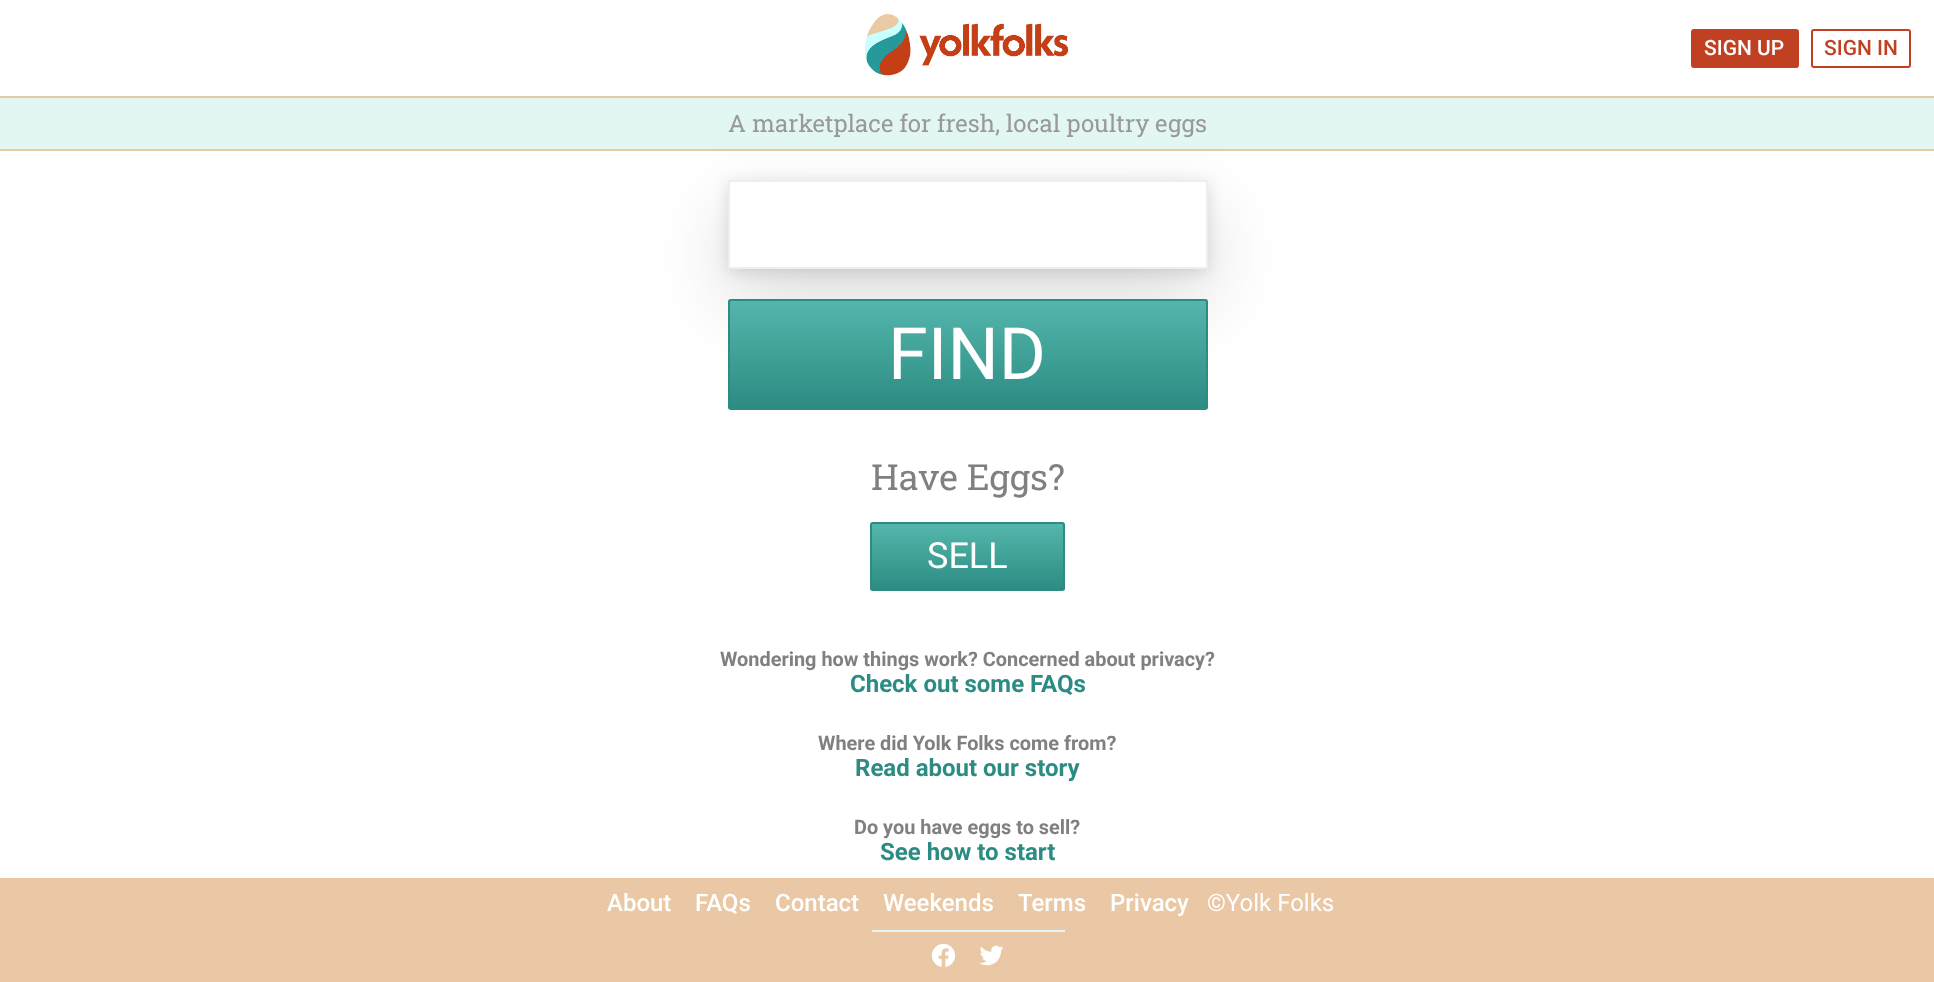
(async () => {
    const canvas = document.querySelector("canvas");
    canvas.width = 1934;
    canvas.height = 982;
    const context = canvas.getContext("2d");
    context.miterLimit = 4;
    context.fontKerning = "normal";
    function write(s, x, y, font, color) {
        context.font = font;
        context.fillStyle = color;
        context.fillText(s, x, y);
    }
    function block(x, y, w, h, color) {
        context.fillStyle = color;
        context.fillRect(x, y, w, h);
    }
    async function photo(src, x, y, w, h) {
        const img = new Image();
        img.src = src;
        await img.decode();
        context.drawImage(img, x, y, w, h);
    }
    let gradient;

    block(0, 0, 1934, 982, "rgb(255, 255, 255)");
    await photo("media/1.png", 865, 14, 203, 62);
    context.fillStyle = "rgb(192, 64, 33)";
    context.beginPath();
    context.roundRect(1692, 30, 106, 37, 2);
    context.fill();
    context.strokeStyle = "rgb(192, 64, 33)";
    context.lineWidth = 2;
    context.stroke();
    write("SIGN UP", 1704, 55, "500 21px Roboto", "rgb(255, 255, 255)");
    context.beginPath();
    context.roundRect(1812, 30, 98, 37, 2);
    context.stroke();
    write("SIGN IN", 1824, 55, "500 21px Roboto", "rgb(192, 64, 33)");
    context.fillStyle = "rgba(0, 0, 0, 0.14)";
    context.filter = "blur(37.5px)";
    context.beginPath();
    context.rect(728, 210, 480, 89);
    context.fill();
    context.filter = "none";
    block(0, 98, 1934, 51, "rgb(226, 247, 243)");
    block(0, 96, 1934, 2, "rgb(234, 200, 165)");
    block(0, 149, 1934, 2, "rgb(234, 200, 165)");
    write("A marketplace for fresh, local poultry eggs", 728, 132, "24px Roboto Slab", "rgb(153, 153, 153)");
    context.fillStyle = "rgba(0, 0, 0, 0.12)";
    context.filter = "blur(7.5px)";
    context.beginPath();
    context.rect(728, 183, 480, 89);
    context.fill();
    context.filter = "none";
    context.fillStyle = "rgb(255, 255, 255)";
    context.beginPath();
    context.rect(729, 181, 478, 87);
    context.fill();
    context.strokeStyle = "rgb(238, 238, 238)";
    context.stroke();
    context.save();
    context.beginPath();
    context.roundRect(728, 299, 480, 111, 3);
    context.clip();
    gradient = context.createLinearGradient(968, 408, 968, 300);
    gradient.addColorStop(0, "rgb(44, 140, 131)");
    gradient.addColorStop(1, "rgb(84, 182, 172)");
    context.fillStyle = gradient;
    context.fillRect(728, 300, 480, 108);
    context.restore();
    context.beginPath();
    context.roundRect(729, 300, 478, 109, 2);
    context.strokeStyle = "rgb(44, 140, 131)";
    context.stroke();
    write("FIND", 888, 379, "72px Roboto", "rgb(255, 255, 255)");
    write("Have Eggs?", 871, 490, "36px Roboto Slab", "rgb(128, 128, 128)");
    context.save();
    context.beginPath();
    context.roundRect(870, 522, 195, 69, 3);
    context.clip();
    gradient = context.createLinearGradient(968, 590, 968, 524);
    gradient.addColorStop(0, "rgb(44, 140, 131)");
    gradient.addColorStop(1, "rgb(84, 182, 172)");
    context.fillStyle = gradient;
    context.fillRect(870, 524, 195, 66);
    context.restore();
    context.beginPath();
    context.roundRect(871, 523, 193, 67, 2);
    context.stroke();
    write("SELL", 927, 568, "36px Roboto", "rgb(255, 255, 255)");
    write("Wondering how things work? Concerned about privacy?", 720, 666, "bold 19.9px Roboto", "rgb(128, 128, 128)");
    write("Check out some FAQs", 850, 692, "bold 24px Roboto", "rgb(44, 140, 131)");
    write("Where did Yolk Folks come from?", 818, 750, "bold 19.9px Roboto", "rgb(128, 128, 128)");
    write("Read about our story", 855, 776, "bold 24px Roboto", "rgb(44, 140, 131)");
    write("Do you have eggs to sell?", 854, 834, "bold 19.9px Roboto", "rgb(128, 128, 128)");
    write("See how to start", 880, 860, "bold 24px Roboto", "rgb(44, 140, 131)");
    block(0, 878, 1934, 104, "rgb(234, 200, 165)");
    write("About", 607, 911, "500 24px Roboto", "rgb(255, 255, 255)");
    write("FAQs", 695, 911, "500 24px Roboto", "rgb(255, 255, 255)");
    write("Contact", 775, 911, "500 24px Roboto", "rgb(255, 255, 255)");
    write("Weekends", 883, 911, "500 24px Roboto", "rgb(255, 255, 255)");
    write("Terms", 1018, 911, "500 24px Roboto", "rgb(255, 255, 255)");
    write("Privacy", 1110, 911, "500 24px Roboto", "rgb(255, 255, 255)");
    write("©Yolk Folks", 1207, 911, "24px Roboto", "rgb(255, 255, 255)");
    block(872, 930, 193, 2, "rgb(226, 247, 243)");
    await photo("media/2.png", 931, 943, 25, 24);
    await photo("media/3.png", 979, 945, 25, 21);
})();
